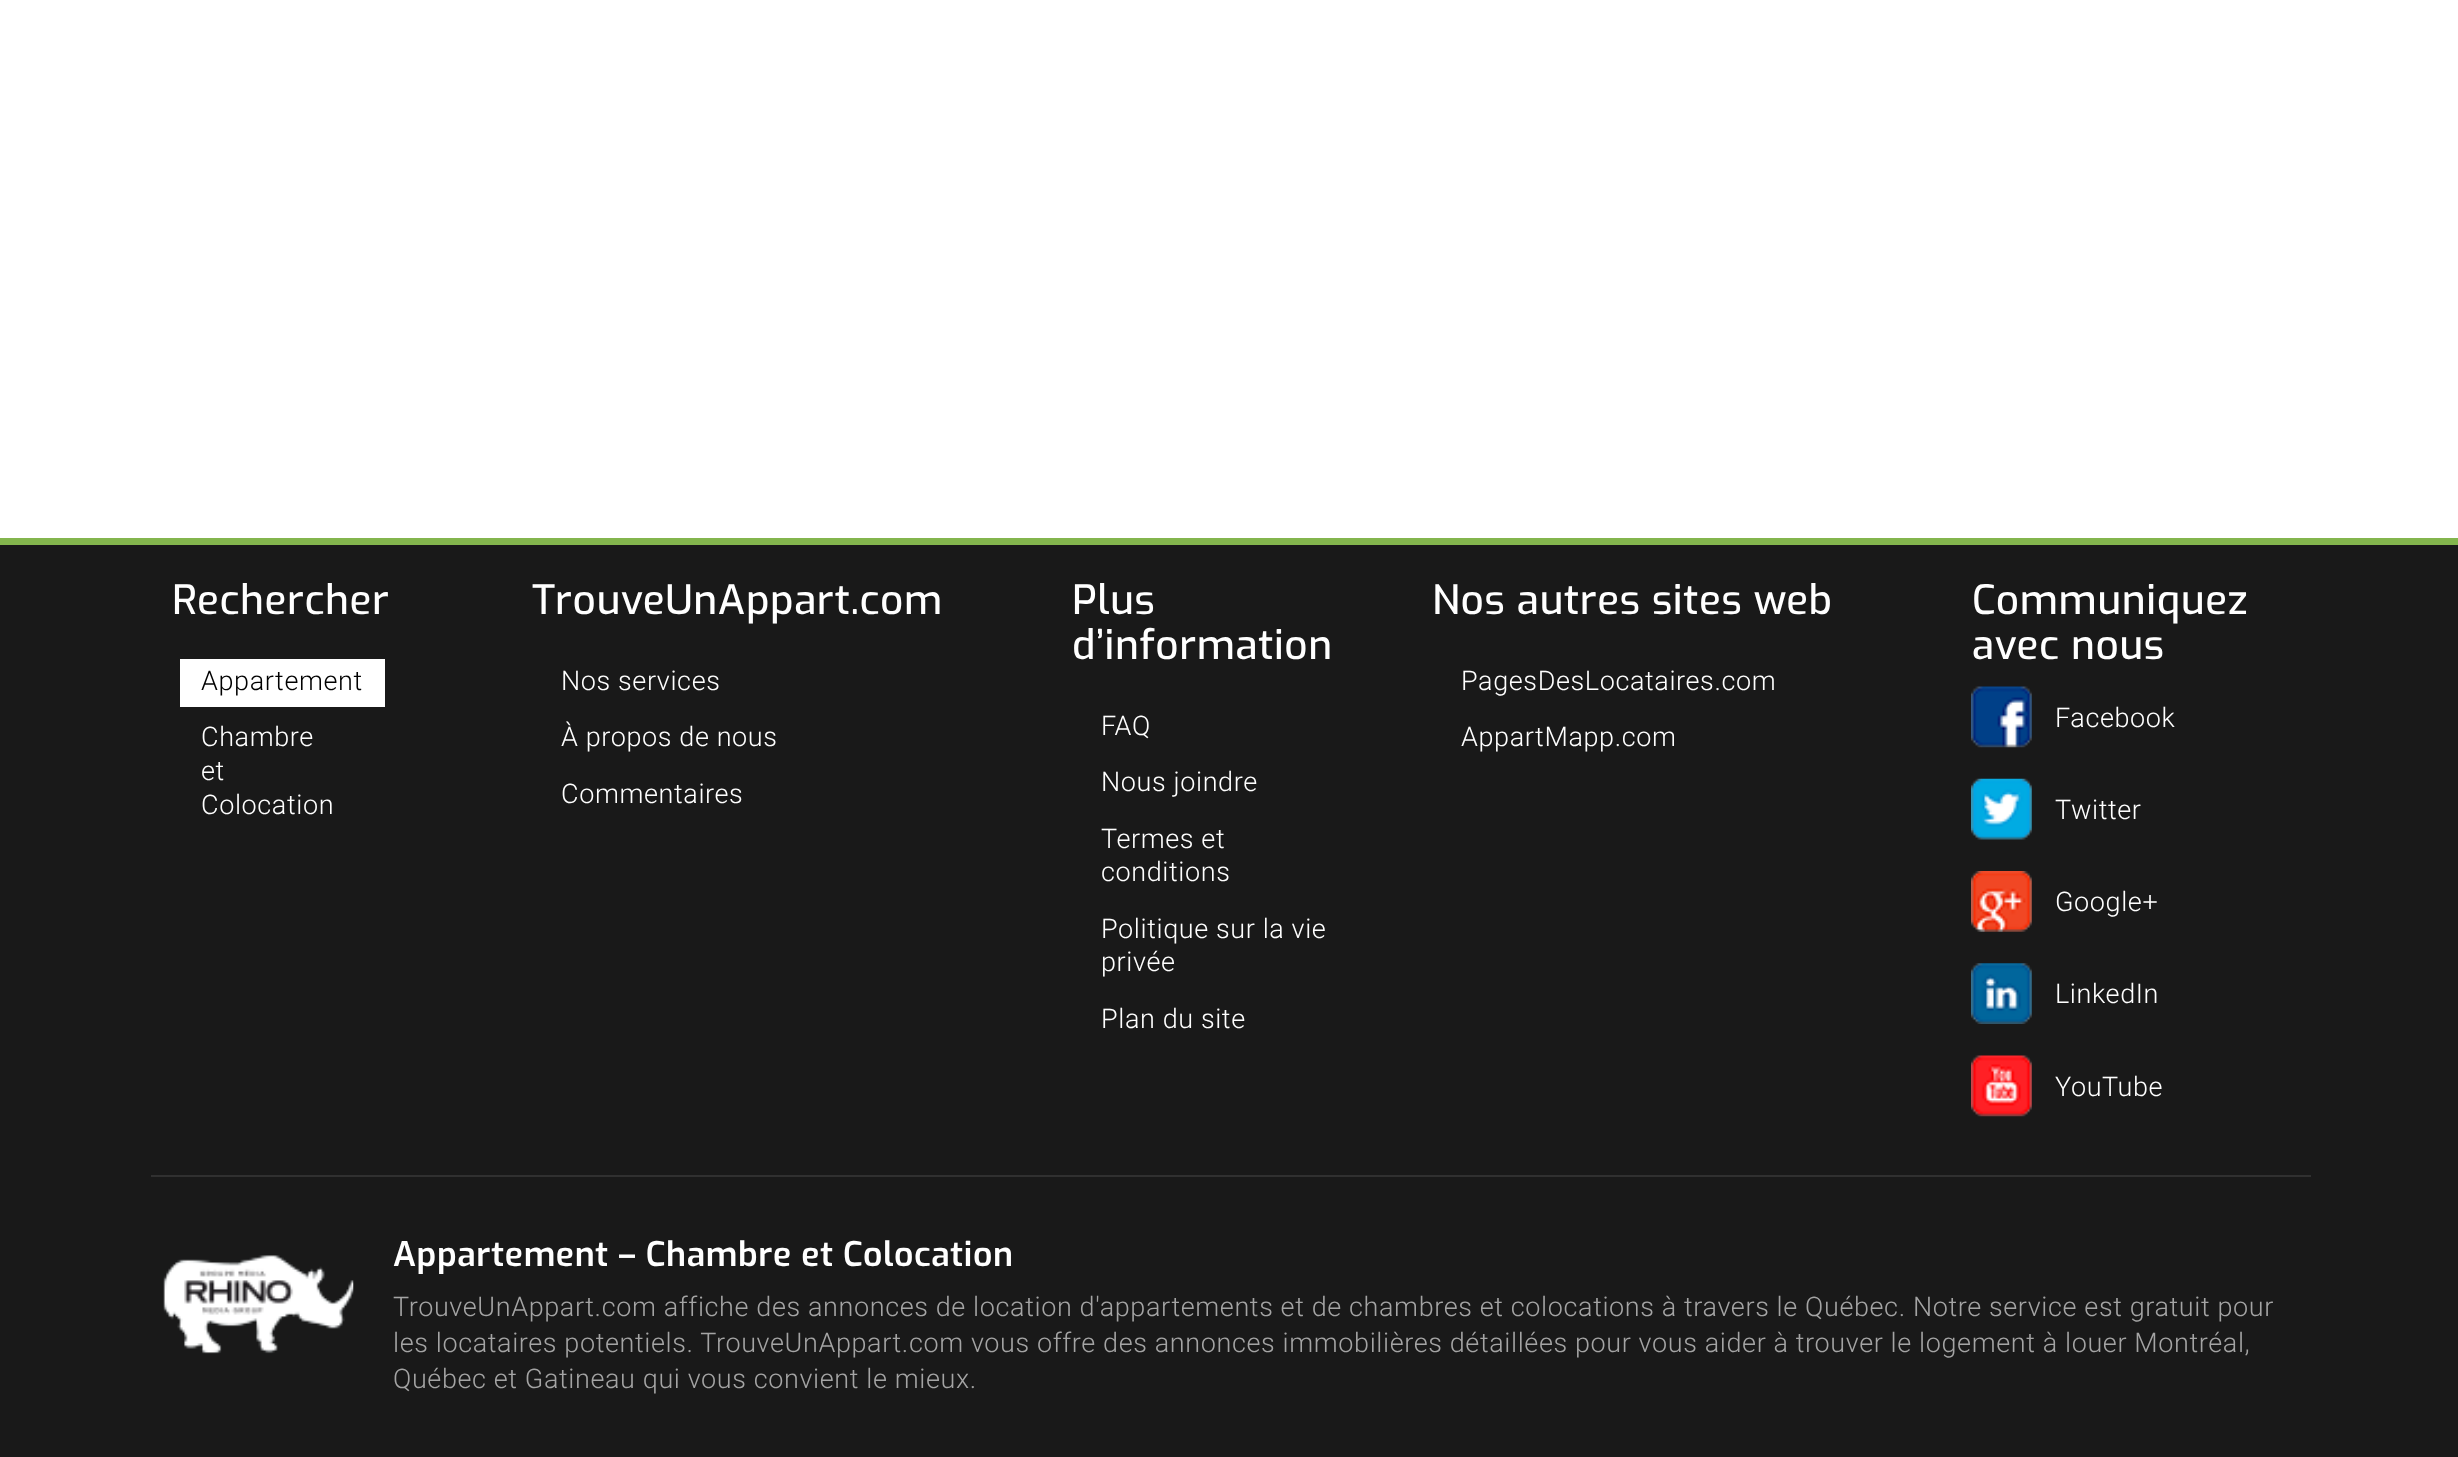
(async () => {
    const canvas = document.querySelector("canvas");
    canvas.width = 2458;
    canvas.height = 1457;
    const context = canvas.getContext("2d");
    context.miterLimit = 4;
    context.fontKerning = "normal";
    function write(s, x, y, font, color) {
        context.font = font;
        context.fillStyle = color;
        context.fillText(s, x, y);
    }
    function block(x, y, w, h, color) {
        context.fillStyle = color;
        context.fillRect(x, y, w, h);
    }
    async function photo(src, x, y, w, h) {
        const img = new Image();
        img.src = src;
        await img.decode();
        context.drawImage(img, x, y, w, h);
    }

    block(0, 0, 2458, 1457, "rgb(255, 255, 255)");
    block(0, 545, 2458, 912, "rgb(25, 25, 25)");
    block(0, 538, 2458, 7, "rgb(131, 181, 77)");
    context.letterSpacing = "0.61px";
    write("Rechercher", 172, 614, "500 40.5px Exo", "rgb(255, 255, 255)");
    block(180, 659, 205, 48, "rgb(255, 255, 255)");
    write("Appartement", 201, 690, "300 27px Roboto", "rgb(0, 0, 0)");
    write("Chambre", 201, 746, "300 27px Roboto", "rgb(255, 255, 255)");
    write("et", 201, 780, "300 27px Roboto", "rgb(255, 255, 255)");
    write("Colocation", 201, 814, "300 27px Roboto", "rgb(255, 255, 255)");
    write("TrouveUnAppart.com", 532, 614, "500 40.5px Exo", "rgb(255, 255, 255)");
    write("Nos services", 561, 690, "300 27px Roboto", "rgb(255, 255, 255)");
    write("À propos de nous", 561, 746, "300 27px Roboto", "rgb(255, 255, 255)");
    write("Commentaires", 561, 803, "300 27px Roboto", "rgb(255, 255, 255)");
    write("Plus", 1072, 614, "500 40.5px Exo", "rgb(255, 255, 255)");
    write("d’information", 1072, 659, "500 40.5px Exo", "rgb(255, 255, 255)");
    write("FAQ", 1101, 735, "300 27px Roboto", "rgb(255, 255, 255)");
    write("Nous joindre", 1101, 791, "300 27px Roboto", "rgb(255, 255, 255)");
    write("Termes et", 1101, 848, "300 27px Roboto", "rgb(255, 255, 255)");
    write("conditions", 1101, 881, "300 27px Roboto", "rgb(255, 255, 255)");
    write("Politique sur la vie", 1101, 938, "300 27px Roboto", "rgb(255, 255, 255)");
    write("privée", 1101, 971, "300 27px Roboto", "rgb(255, 255, 255)");
    write("Plan du site", 1101, 1028, "300 27px Roboto", "rgb(255, 255, 255)");
    write("Nos autres sites web", 1432, 614, "500 40.5px Exo", "rgb(255, 255, 255)");
    write("PagesDesLocataires.com", 1461, 690, "300 27px Roboto", "rgb(255, 255, 255)");
    write("AppartMapp.com", 1461, 746, "300 27px Roboto", "rgb(255, 255, 255)");
    write("Communiquez", 1972, 614, "500 40.5px Exo", "rgb(255, 255, 255)");
    write("avec nous", 1972, 659, "500 40.5px Exo", "rgb(255, 255, 255)");
    await photo("media/1.png", 1971, 686, 61, 62);
    write("Facebook", 2055, 727, "300 27px Roboto", "rgb(255, 255, 255)");
    await photo("media/2.png", 1971, 778, 61, 62);
    write("Twitter", 2055, 819, "300 27px Roboto", "rgb(255, 255, 255)");
    await photo("media/3.png", 1971, 871, 61, 61);
    write("Google+", 2055, 911, "300 27px Roboto", "rgb(255, 255, 255)");
    await photo("media/4.png", 1971, 963, 61, 61);
    write("LinkedIn", 2055, 1003, "300 27px Roboto", "rgb(255, 255, 255)");
    await photo("media/5.png", 1971, 1055, 61, 62);
    write("YouTube", 2055, 1096, "300 27px Roboto", "rgb(255, 255, 255)");
    block(151, 1175, 2160, 2, "rgb(48, 48, 48)");
    await photo("media/6.png", 163, 1255, 191, 99);
    write("Appartement – Chambre et Colocation", 393, 1266, "600 33.75px Exo", "rgb(255, 255, 255)");
    write("TrouveUnAppart.com affiche des annonces de location d'appartements et de chambres et colocations à travers le Québec. Notre service est gratuit pour", 393, 1316, "300 27px Roboto", "rgb(164, 164, 164)");
    write("les locataires potentiels. TrouveUnAppart.com vous offre des annonces immobilières détaillées pour vous aider à trouver le logement à louer Montréal,", 393, 1352, "300 27px Roboto", "rgb(164, 164, 164)");
    write("Québec et Gatineau qui vous convient le mieux.", 393, 1388, "300 27px Roboto", "rgb(164, 164, 164)");
})();
